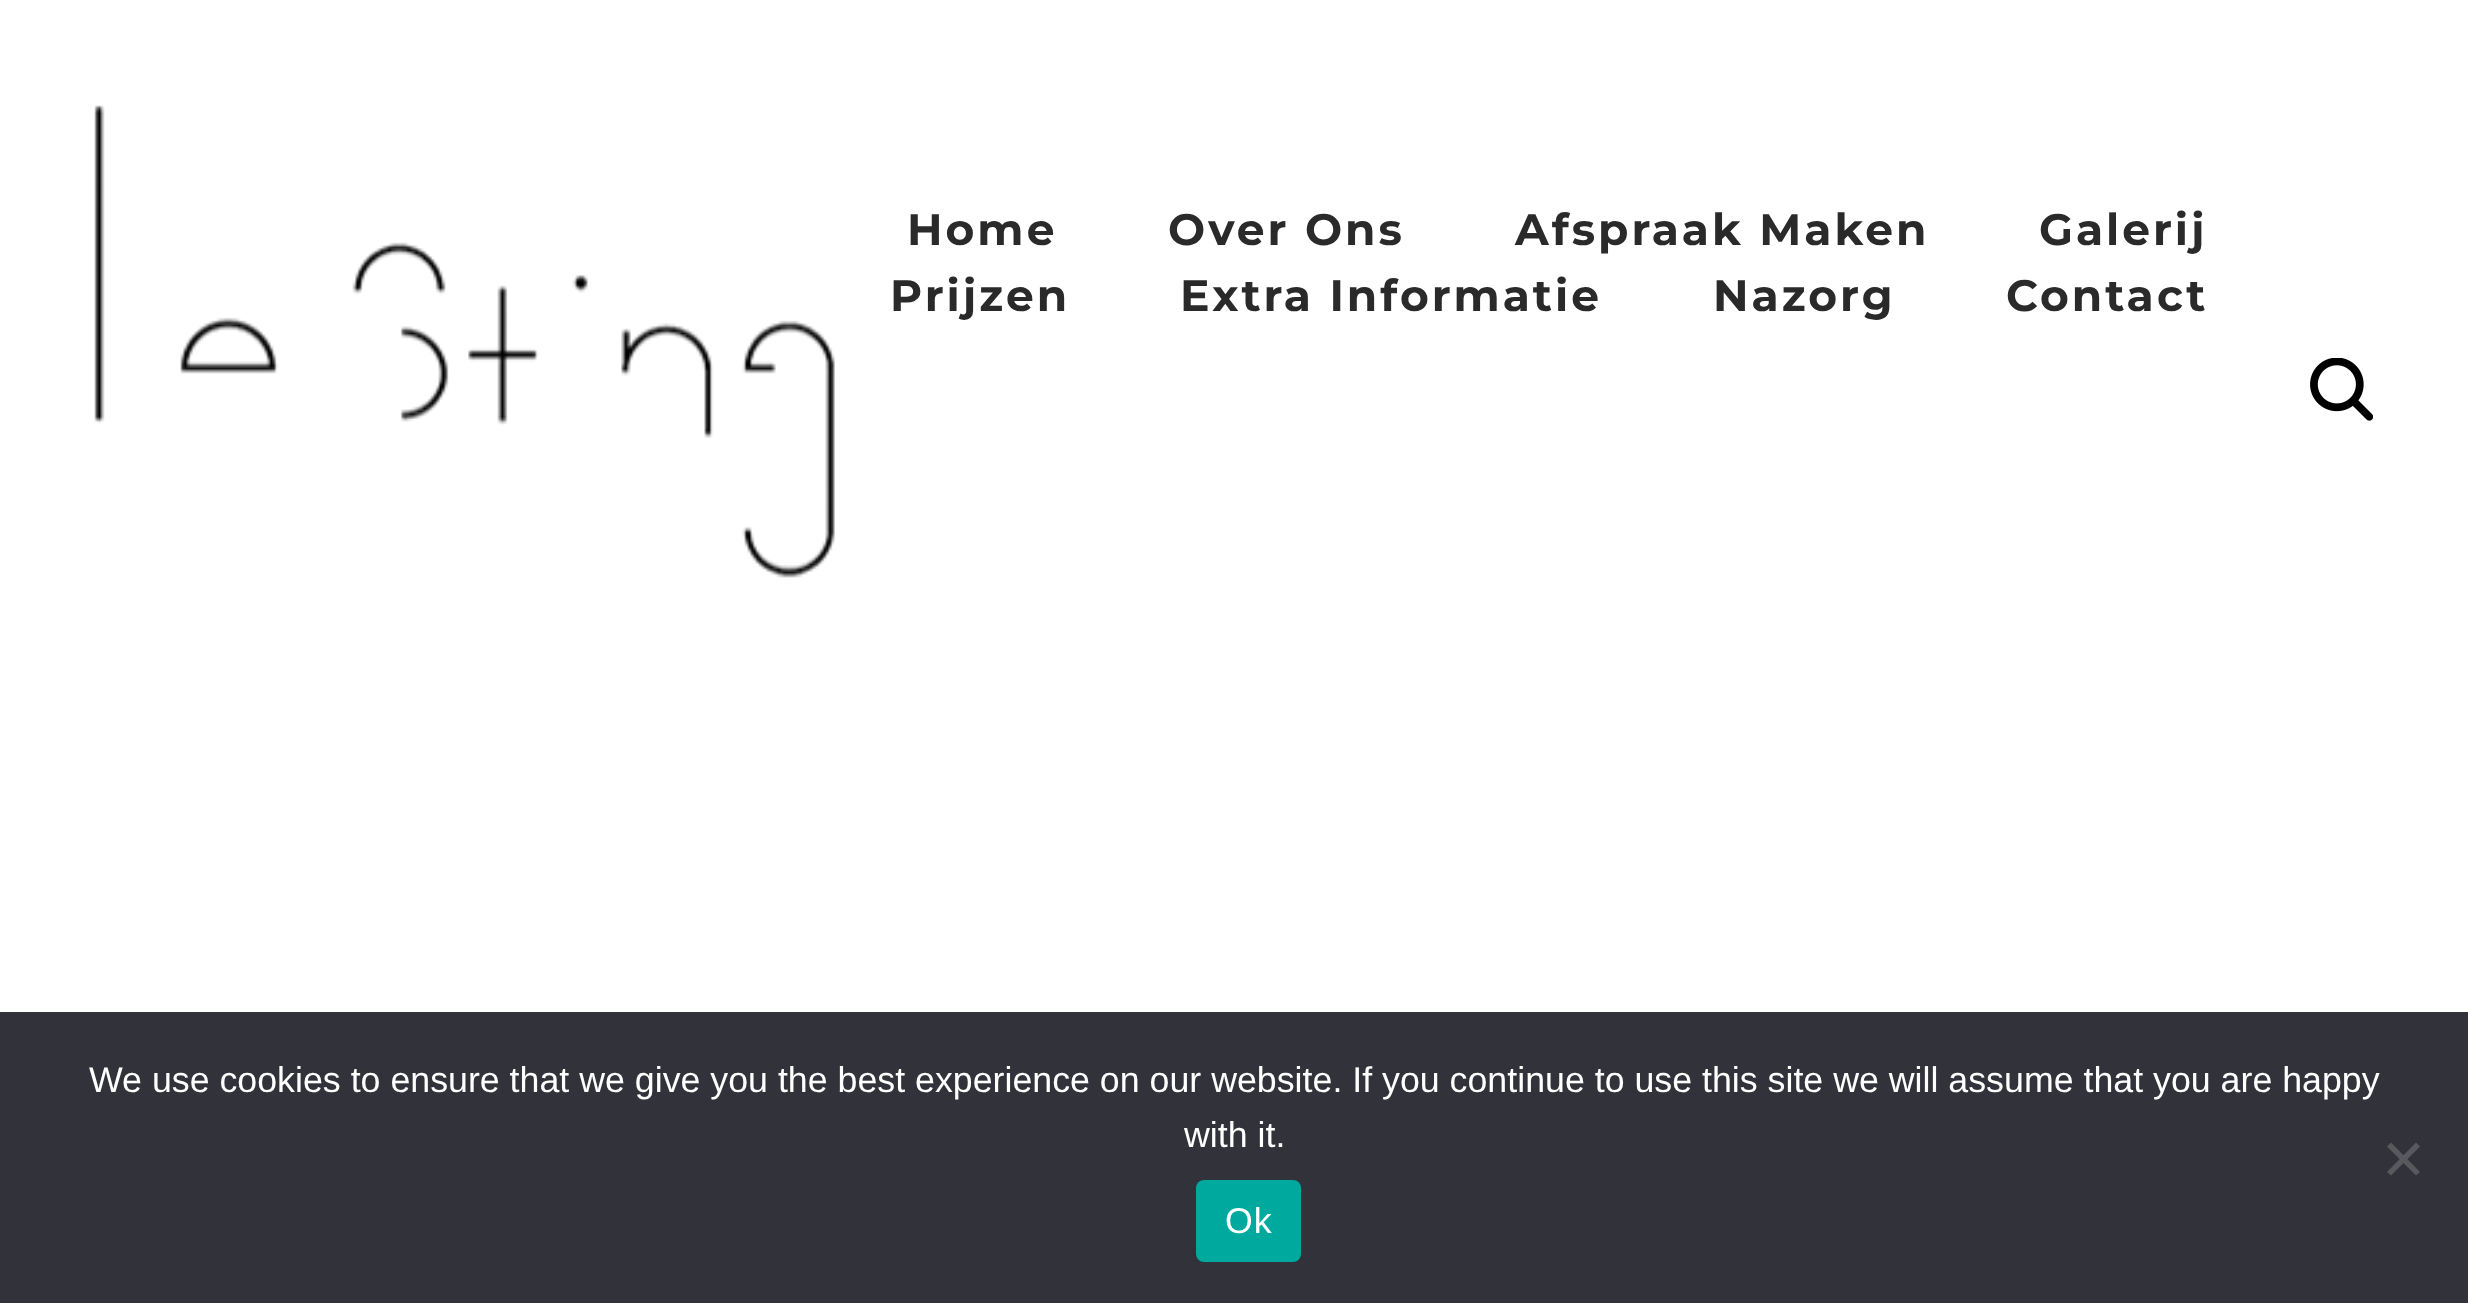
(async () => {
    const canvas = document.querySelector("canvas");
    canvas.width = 2468;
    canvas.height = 1303;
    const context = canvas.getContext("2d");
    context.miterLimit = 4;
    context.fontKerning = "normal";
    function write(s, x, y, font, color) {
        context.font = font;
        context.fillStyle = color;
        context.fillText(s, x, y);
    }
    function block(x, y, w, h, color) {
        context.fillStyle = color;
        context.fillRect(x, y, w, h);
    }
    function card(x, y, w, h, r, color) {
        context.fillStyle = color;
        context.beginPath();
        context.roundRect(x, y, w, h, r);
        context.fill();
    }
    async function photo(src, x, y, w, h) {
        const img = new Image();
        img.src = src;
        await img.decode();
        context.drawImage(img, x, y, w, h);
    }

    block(0, 0, 2468, 1303, "rgb(255, 255, 255)");
    await photo("media/1.png", 94, 105, 741, 473);
    context.letterSpacing = "3px";
    write("Home", 907, 245, "bold 44px Montserrat", "rgb(42, 42, 42)");
    write("Over Ons", 1168, 245, "bold 44px Montserrat", "rgb(42, 42, 42)");
    write("Afspraak Maken", 1515, 245, "bold 44px Montserrat", "rgb(42, 42, 42)");
    write("Galerij", 2039, 245, "bold 44px Montserrat", "rgb(42, 42, 42)");
    write("Prijzen", 890, 311, "bold 44px Montserrat", "rgb(42, 42, 42)");
    write("Extra Informatie", 1180, 311, "bold 44px Montserrat", "rgb(42, 42, 42)");
    write("Nazorg", 1713, 311, "bold 44px Montserrat", "rgb(42, 42, 42)");
    write("Contact", 2006, 311, "bold 44px Montserrat", "rgb(42, 42, 42)");
    await photo("media/2.png", 2310, 358, 63, 63);
    block(0, 1012, 2468, 291, "rgb(50, 50, 58)");
    context.letterSpacing = "0px";
    write("We use cookies to ensure that we give you the best experience on our website. If you continue to use this site we will assume that you are happy", 89, 1092, "35.75px Liberation Sans", "rgb(255, 255, 255)");
    write("with it.", 1184, 1147, "35.75px Liberation Sans", "rgb(255, 255, 255)");
    context.fillStyle = "rgb(89, 89, 93)";
    context.beginPath();
    context.moveTo(2416, 1142.5);
    context.lineTo(2420, 1146.5);
    context.lineTo(2391, 1175.5);
    context.lineTo(2387, 1172);
    context.closePath();
    context.fill();
    context.beginPath();
    context.moveTo(2387, 1146.5);
    context.lineTo(2391, 1142.5);
    context.lineTo(2420, 1172);
    context.lineTo(2416, 1175.5);
    context.closePath();
    context.fill();
    card(1196, 1180, 105, 82, 8, "rgb(0, 169, 157)");
    context.letterSpacing = "1px";
    write("Ok", 1225, 1233, "35.75px Liberation Sans", "rgb(255, 255, 255)");
})();
